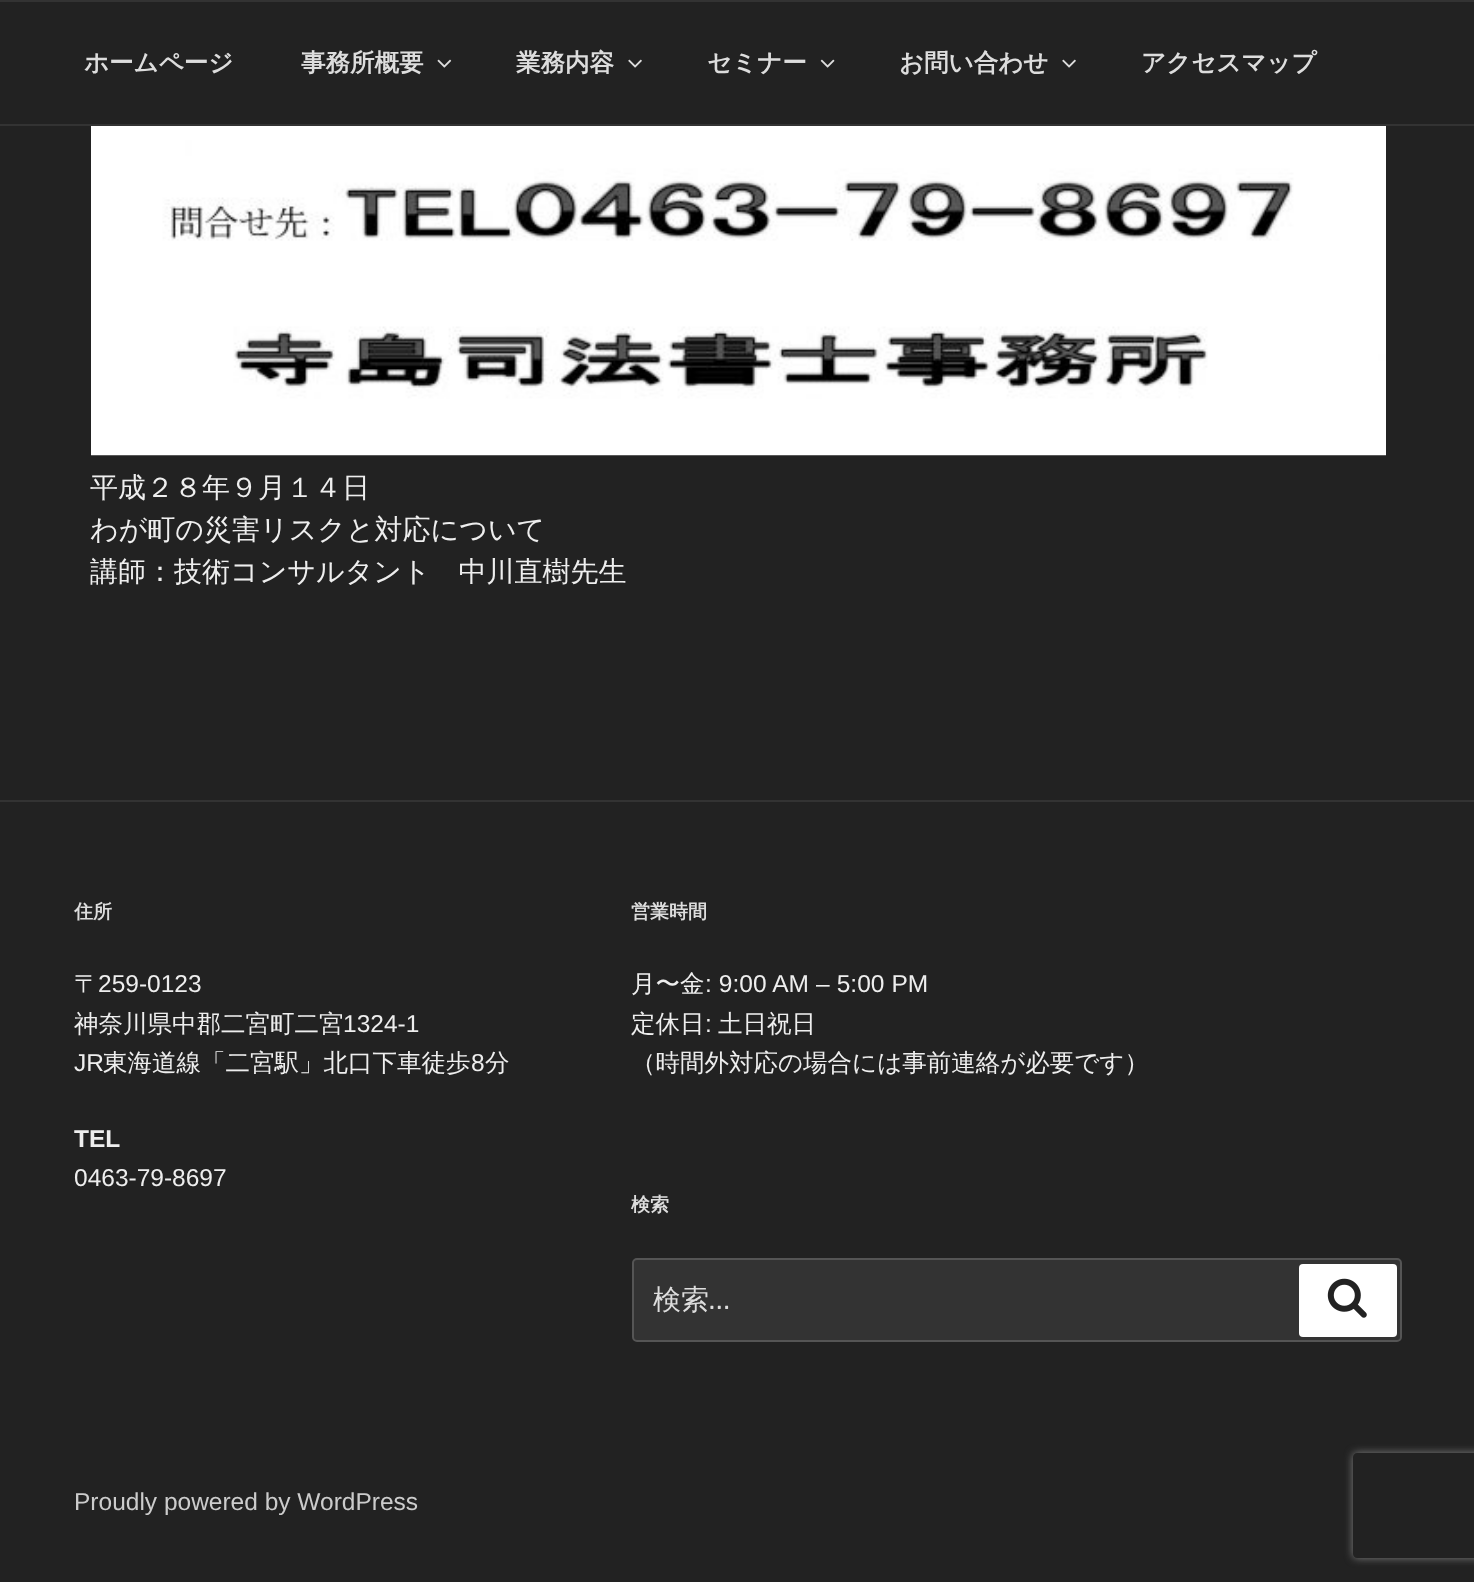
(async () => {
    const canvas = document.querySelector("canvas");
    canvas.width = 1474;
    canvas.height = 1582;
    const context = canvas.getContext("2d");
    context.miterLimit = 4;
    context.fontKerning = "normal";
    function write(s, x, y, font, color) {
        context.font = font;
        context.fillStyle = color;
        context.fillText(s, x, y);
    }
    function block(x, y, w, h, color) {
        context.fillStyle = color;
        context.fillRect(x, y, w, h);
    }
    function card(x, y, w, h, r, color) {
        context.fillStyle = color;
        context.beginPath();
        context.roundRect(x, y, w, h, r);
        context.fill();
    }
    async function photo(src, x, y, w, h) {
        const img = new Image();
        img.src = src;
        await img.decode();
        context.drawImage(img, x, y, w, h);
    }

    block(0, 0, 1474, 1582, "rgb(34, 34, 34)");
    block(0, 0, 1474, 2, "rgb(51, 51, 51)");
    block(0, 124, 1474, 2, "rgb(51, 51, 51)");
    write("ホームページ", 84, 71, "bold 24.5px WenQuanYi Zen Hei", "rgb(221, 221, 221)");
    write("事務所概要", 301, 71, "bold 24.5px WenQuanYi Zen Hei", "rgb(221, 221, 221)");
    await photo("media/1.png", 437, 59, 15, 9);
    write("業務内容", 516, 71, "bold 24.5px WenQuanYi Zen Hei", "rgb(221, 221, 221)");
    await photo("media/2.png", 628, 59, 14, 9);
    write("セミナー", 707, 71, "bold 24.5px WenQuanYi Zen Hei", "rgb(221, 221, 221)");
    await photo("media/3.png", 820, 59, 15, 9);
    write("お問い合わせ", 899, 71, "bold 24.5px WenQuanYi Zen Hei", "rgb(221, 221, 221)");
    await photo("media/2.png", 1062, 59, 14, 9);
    write("アクセスマップ", 1141, 71, "bold 24.5px WenQuanYi Zen Hei", "rgb(221, 221, 221)");
    await photo("media/4.png", 91, 126, 1295, 330);
    write("平成２８年９月１４日", 90, 497, "500 28px WenQuanYi Zen Hei", "rgb(238, 238, 238)");
    write("わが町の災害リスクと対応について", 90, 539, "500 28px WenQuanYi Zen Hei", "rgb(238, 238, 238)");
    write("講師：技術コンサルタント　中川直樹先生", 90, 581, "500 28px WenQuanYi Zen Hei", "rgb(238, 238, 238)");
    block(0, 800, 1474, 2, "rgb(51, 51, 51)");
    write("住所", 74, 918, "bold 19px WenQuanYi Zen Hei", "rgb(221, 221, 221)");
    write("〒", 74, 992, "500 24.5px WenQuanYi Zen Hei", "rgb(238, 238, 238)");
    write("259-0123", 98, 992, "24.5px Liberation Sans", "rgb(238, 238, 238)");
    write("神奈川県中郡二宮町二宮", 74, 1032, "500 24.5px WenQuanYi Zen Hei", "rgb(238, 238, 238)");
    write("1324-1", 343, 1032, "24.5px Liberation Sans", "rgb(238, 238, 238)");
    write("JR", 74, 1071, "24.5px Liberation Sans", "rgb(238, 238, 238)");
    write("東海道線「二宮駅」北口下車徒歩", 103, 1071, "500 24.5px WenQuanYi Zen Hei", "rgb(238, 238, 238)");
    write("8", 471, 1071, "24.5px Liberation Sans", "rgb(238, 238, 238)");
    write("分", 485, 1071, "500 24.5px WenQuanYi Zen Hei", "rgb(238, 238, 238)");
    write("TEL", 74, 1147, "bold 24.5px Liberation Sans", "rgb(238, 238, 238)");
    write("0463-79-8697", 74, 1186, "24.5px Liberation Sans", "rgb(238, 238, 238)");
    write("営業時間", 631, 918, "bold 19px WenQuanYi Zen Hei", "rgb(221, 221, 221)");
    write("月〜金", 631, 992, "500 24.5px WenQuanYi Zen Hei", "rgb(238, 238, 238)");
    context.wordSpacing = "0.25px";
    write(": 9:00 AM – 5:00 PM", 705, 992, "24.5px Liberation Sans", "rgb(238, 238, 238)");
    context.wordSpacing = "0px";
    write("定休日", 631, 1032, "500 24.5px WenQuanYi Zen Hei", "rgb(238, 238, 238)");
    write(":", 705, 1032, "24.5px Liberation Sans", "rgb(238, 238, 238)");
    write("土日祝日", 718, 1032, "500 24.5px WenQuanYi Zen Hei", "rgb(238, 238, 238)");
    write("（時間外対応の場合には事前連絡が必要です）", 631, 1071, "500 24.5px WenQuanYi Zen Hei", "rgb(238, 238, 238)");
    write("検索", 631, 1211, "bold 19px WenQuanYi Zen Hei", "rgb(221, 221, 221)");
    context.fillStyle = "rgb(51, 51, 51)";
    context.beginPath();
    context.roundRect(633, 1259, 768, 82, 4);
    context.fill();
    context.strokeStyle = "rgb(85, 85, 85)";
    context.lineWidth = 2;
    context.stroke();
    write("検索", 653, 1309, "500 28px WenQuanYi Zen Hei", "rgb(221, 221, 221)");
    write("…", 709, 1309, "28px Libre Franklin", "rgb(221, 221, 221)");
    card(1299, 1264, 98, 73, 4, "rgb(255, 255, 255)");
    await photo("media/5.png", 1327, 1278, 40, 40);
    write("Proudly powered by WordPress", 74, 1510, "24.5px Liberation Sans", "rgb(204, 204, 204)");
    context.save();
    context.beginPath();
    context.moveTo(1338, 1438);
    context.lineTo(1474, 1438);
    context.lineTo(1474, 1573);
    context.lineTo(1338, 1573);
    context.closePath();
    context.moveTo(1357, 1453);
    context.lineTo(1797, 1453);
    context.bezierCurveTo(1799, 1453, 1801, 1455, 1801, 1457);
    context.lineTo(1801, 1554);
    context.bezierCurveTo(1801, 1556, 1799, 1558, 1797, 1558);
    context.lineTo(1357, 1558);
    context.bezierCurveTo(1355, 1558, 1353, 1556, 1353, 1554);
    context.lineTo(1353, 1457);
    context.bezierCurveTo(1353, 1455, 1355, 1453, 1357, 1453);
    context.closePath();
    context.clip("evenodd");
    context.fillStyle = "rgb(128, 128, 128)";
    context.filter = "blur(4.5px)";
    context.beginPath();
    context.roundRect(1353, 1453, 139, 105, 4);
    context.fill();
    context.filter = "none";
    context.restore();
})();
